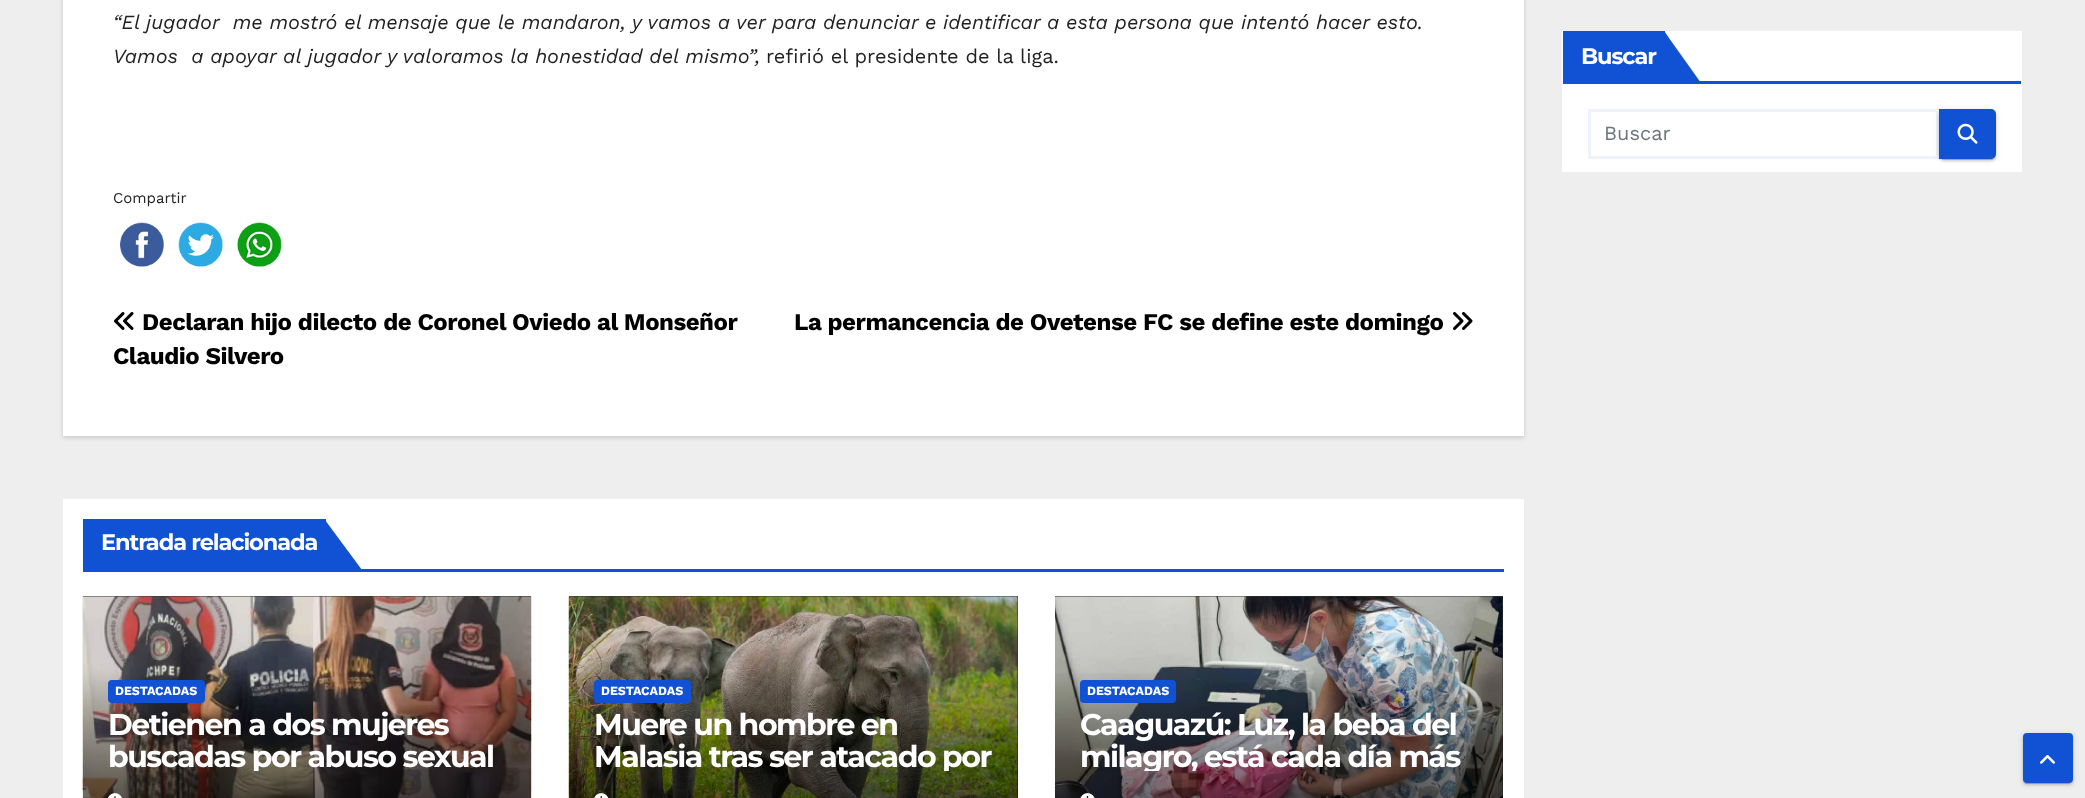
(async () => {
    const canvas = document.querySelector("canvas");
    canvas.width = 2085;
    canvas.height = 798;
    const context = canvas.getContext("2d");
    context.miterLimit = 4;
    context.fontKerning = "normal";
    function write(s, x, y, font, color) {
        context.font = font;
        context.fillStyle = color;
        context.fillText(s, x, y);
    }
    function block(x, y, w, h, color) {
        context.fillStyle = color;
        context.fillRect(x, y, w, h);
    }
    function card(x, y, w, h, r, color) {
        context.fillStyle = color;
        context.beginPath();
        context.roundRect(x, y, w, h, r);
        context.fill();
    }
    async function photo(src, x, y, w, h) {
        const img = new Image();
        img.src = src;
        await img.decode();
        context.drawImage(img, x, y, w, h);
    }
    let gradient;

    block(0, 0, 2085, 798, "rgb(238, 238, 238)");
    context.fillStyle = "rgba(0, 0, 0, 0.15)";
    context.filter = "blur(2px)";
    context.beginPath();
    context.rect(63, -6, 1461, 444);
    context.fill();
    context.filter = "none";
    block(63, 0, 1461, 436, "rgb(255, 255, 255)");
    write("“El jugador  me mostró el mensaje que le mandaron, y vamos a ver para denunciar e identificar a esta persona que intentó hacer esto.", 113, 29, "italic 20px Work Sans", "rgb(34, 34, 34)");
    write("Vamos  a apoyar al jugador y valoramos la honestidad del mismo”,", 113, 63, "italic 20px Work Sans", "rgb(34, 34, 34)");
    write("refirió el presidente de la liga.", 766, 63, "20px Work Sans", "rgb(34, 34, 34)");
    write("Compartir", 113, 203, "15px Work Sans", "rgb(34, 34, 34)");
    await photo("media/1.png", 120, 222, 44, 45);
    await photo("media/2.png", 178, 222, 45, 45);
    await photo("media/3.png", 237, 222, 45, 45);
    await photo("media/4.png", 114, 312, 20, 18);
    context.letterSpacing = "-0.48px";
    write("Declaran hijo dilecto de Coronel Oviedo al Monseñor", 142, 330, "bold 24px Work Sans", "rgb(0, 0, 0)");
    write("Claudio Silvero", 113, 364, "bold 24px Work Sans", "rgb(0, 0, 0)");
    write("La permancencia de Ovetense FC se define este domingo", 794, 330, "bold 24px Work Sans", "rgb(0, 0, 0)");
    await photo("media/5.png", 1453, 312, 20, 18);
    block(63, 499, 1461, 299, "rgb(255, 255, 255)");
    block(83, 569, 1421, 3, "rgb(17, 81, 211)");
    block(83, 519, 243, 50, "rgb(17, 81, 211)");
    context.letterSpacing = "-1.1px";
    write("Entrada relacionada", 101, 550, "bold 22.5px Montserrat", "rgb(255, 255, 255)");
    context.fillStyle = "rgb(17, 81, 211)";
    context.beginPath();
    context.moveTo(362, 570);
    context.lineTo(325, 570);
    context.lineTo(325, 520);
    context.closePath();
    context.fill();
    block(83, 596, 448, 1, "rgb(51, 51, 51)");
    await photo("media/6.png", 82, 596, 450, 202);
    card(108, 680, 97, 23, 4, "rgb(17, 81, 211)");
    context.letterSpacing = "0px";
    write("DESTACADAS", 115, 695, "bold 12.5px Work Sans", "rgb(255, 255, 255)");
    context.letterSpacing = "-1.5px";
    write("Detienen a dos mujeres", 108, 735, "bold 30px Montserrat", "rgb(255, 255, 255)");
    context.save();
    context.beginPath();
    context.rect(108, 709, 398, 62);
    context.clip();
    write("buscadas por abuso sexual", 108, 767, "bold 30px Montserrat", "rgb(255, 255, 255)");
    context.restore();
    await photo("media/7.png", 108, 793, 14, 5);
    block(569, 596, 449, 202, "rgb(51, 51, 51)");
    await photo("media/8.png", 568, 596, 450, 202);
    gradient = context.createLinearGradient(793, 668, 793, 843);
    gradient.addColorStop(0, "rgba(0, 0, 0, 0)");
    gradient.addColorStop(0.5, "rgba(0, 0, 0, 0.4)");
    gradient.addColorStop(1, "rgba(0, 0, 0, 0.7)");
    context.fillStyle = gradient;
    context.fillRect(569, 673, 449, 125);
    card(594, 680, 97, 23, 4, "rgb(17, 81, 211)");
    context.letterSpacing = "0px";
    write("DESTACADAS", 601, 695, "bold 12.5px Work Sans", "rgb(255, 255, 255)");
    context.letterSpacing = "-1.5px";
    write("Muere un hombre en", 594, 735, "bold 30px Montserrat", "rgb(255, 255, 255)");
    context.save();
    context.beginPath();
    context.rect(594, 709, 399, 62);
    context.clip();
    write("Malasia tras ser atacado por", 594, 767, "bold 30px Montserrat", "rgb(255, 255, 255)");
    context.restore();
    await photo("media/9.png", 594, 793, 15, 5);
    block(1055, 596, 448, 202, "rgb(51, 51, 51)");
    await photo("media/10.png", 1055, 596, 448, 202);
    gradient = context.createLinearGradient(1279, 668, 1279, 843);
    gradient.addColorStop(0, "rgba(0, 0, 0, 0)");
    gradient.addColorStop(0.5, "rgba(0, 0, 0, 0.4)");
    gradient.addColorStop(1, "rgba(0, 0, 0, 0.7)");
    context.fillStyle = gradient;
    context.fillRect(1055, 673, 448, 125);
    card(1080, 680, 96, 23, 4, "rgb(17, 81, 211)");
    context.letterSpacing = "0px";
    write("DESTACADAS", 1087, 695, "bold 12.5px Work Sans", "rgb(255, 255, 255)");
    context.letterSpacing = "-1.5px";
    write("Caaguazú: Luz, la beba del", 1080, 735, "bold 30px Montserrat", "rgb(255, 255, 255)");
    context.save();
    context.beginPath();
    context.rect(1080, 709, 398, 62);
    context.clip();
    write("milagro, está cada día más", 1080, 767, "bold 30px Montserrat", "rgb(255, 255, 255)");
    context.restore();
    await photo("media/11.png", 1080, 793, 15, 5);
    block(1562, 31, 460, 141, "rgb(255, 255, 255)");
    block(1563, 81, 458, 3, "rgb(17, 81, 211)");
    block(1563, 31, 102, 50, "rgb(17, 81, 211)");
    context.letterSpacing = "-1.1px";
    write("Buscar", 1581, 64, "bold 22.5px Montserrat", "rgb(255, 255, 255)");
    context.fillStyle = "rgb(17, 81, 211)";
    context.beginPath();
    context.moveTo(1664, 31);
    context.lineTo(1701, 83);
    context.lineTo(1701, 84);
    context.lineTo(1664, 84);
    context.closePath();
    context.fill();
    context.beginPath();
    context.moveTo(1664, 31);
    context.lineTo(1668, 37);
    context.lineTo(1668, 80);
    context.lineTo(1664, 84);
    context.closePath();
    context.fill();
    context.strokeStyle = "rgb(238, 243, 251)";
    context.lineWidth = 3;
    context.strokeRect(1589.5, 110.5, 348, 47);
    context.letterSpacing = "0px";
    write("Buscar", 1604, 140, "20px Work Sans", "rgb(108, 117, 125)");
    context.fillStyle = "rgba(0, 0, 0, 0.12)";
    context.filter = "blur(3px)";
    context.beginPath();
    context.roundRect(1939, 110, 57, 50, 5);
    context.fill();
    context.filter = "none";
    context.fillStyle = "rgba(0, 0, 0, 0.2)";
    context.filter = "blur(0.5px)";
    context.beginPath();
    context.roundRect(1941, 115, 53, 45, 2.5);
    context.fill();
    context.filter = "none";
    context.fillStyle = "rgba(0, 0, 0, 0.14)";
    context.filter = "blur(1px)";
    context.beginPath();
    context.roundRect(1939, 111, 57, 50, 5);
    context.fill();
    context.filter = "none";
    context.fillStyle = "rgb(17, 81, 211)";
    context.beginPath();
    context.roundRect(1939, 109, 57, 50, [0, 5, 5, 0]);
    context.fill();
    await photo("media/12.png", 1957, 123, 21, 21);
    context.fillStyle = "rgba(0, 0, 0, 0.12)";
    context.filter = "blur(3px)";
    context.beginPath();
    context.roundRect(2023, 734, 50, 50, 4);
    context.fill();
    context.filter = "none";
    context.fillStyle = "rgba(0, 0, 0, 0.2)";
    context.filter = "blur(0.5px)";
    context.beginPath();
    context.roundRect(2025, 739, 45, 45, 1);
    context.fill();
    context.filter = "none";
    context.fillStyle = "rgba(0, 0, 0, 0.14)";
    context.filter = "blur(1px)";
    context.beginPath();
    context.roundRect(2023, 735, 50, 50, 4);
    context.fill();
    context.filter = "none";
    context.fillStyle = "rgb(17, 81, 211)";
    context.beginPath();
    context.roundRect(2024.5, 734.5, 47, 47, 2.5);
    context.fill();
    context.strokeStyle = "rgb(17, 81, 211)";
    context.stroke();
    await photo("media/13.png", 2040, 755, 15, 9);
})();
